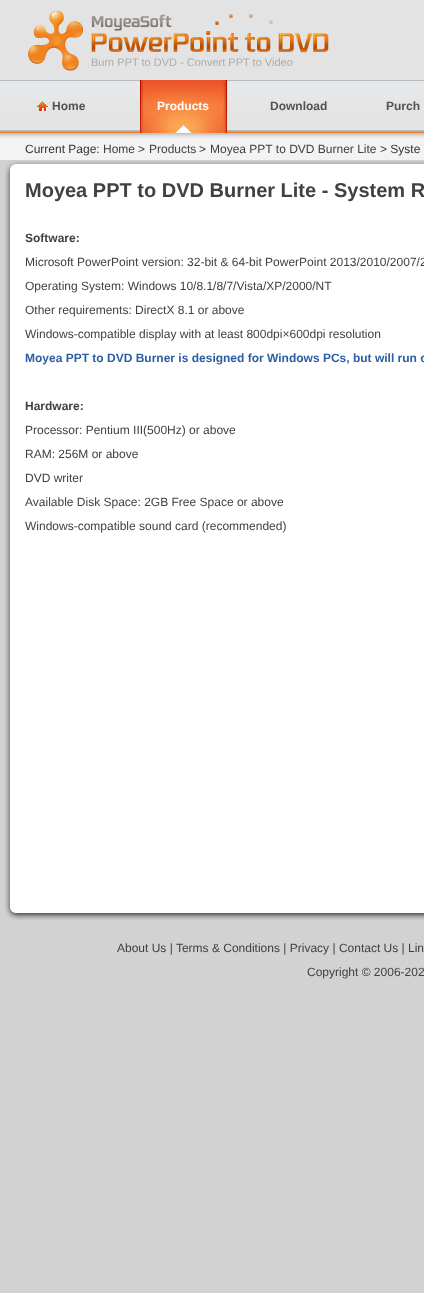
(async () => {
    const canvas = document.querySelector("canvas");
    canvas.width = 424;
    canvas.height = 1293;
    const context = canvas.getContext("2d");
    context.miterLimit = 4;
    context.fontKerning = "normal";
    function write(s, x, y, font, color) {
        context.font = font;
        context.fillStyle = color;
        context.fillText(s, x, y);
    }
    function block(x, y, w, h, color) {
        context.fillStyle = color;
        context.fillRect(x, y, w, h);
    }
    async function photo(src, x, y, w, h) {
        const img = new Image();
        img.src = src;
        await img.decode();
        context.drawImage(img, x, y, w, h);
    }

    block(0, 0, 424, 1293, "rgb(210, 210, 210)");
    await photo("media/1.png", 0, 0, 424, 160);
    await photo("media/2.png", 28, 10, 301, 61);
    write("Burn PPT to DVD - Convert PPT to Video", 91, 66, "11px Liberation Sans", "rgb(172, 172, 172)");
    await photo("media/3.png", 37, 100, 12, 11);
    write("Home", 52, 110, "bold 12px Liberation Sans", "rgb(82, 82, 82)");
    await photo("media/4.png", 140, 80, 87, 53);
    write("Products", 157, 110, "bold 12px Liberation Sans", "rgb(255, 255, 255)");
    write("Download", 270, 110, "bold 12px Liberation Sans", "rgb(82, 82, 82)");
    write("Purch", 386, 110, "bold 12px Liberation Sans", "rgb(82, 82, 82)");
    write("Current Page:", 25, 153, "12px Liberation Sans", "rgb(51, 51, 51)");
    write("Home", 103, 153, "12px Liberation Sans", "rgb(65, 65, 65)");
    write(">", 138, 153, "12px Liberation Sans", "rgb(51, 51, 51)");
    write("Products", 149, 153, "12px Liberation Sans", "rgb(65, 65, 65)");
    write(">", 199, 153, "12px Liberation Sans", "rgb(51, 51, 51)");
    write("Moyea PPT to DVD Burner Lite", 210, 153, "12px Liberation Sans", "rgb(65, 65, 65)");
    write("> Syste", 380, 153, "12px Liberation Sans", "rgb(51, 51, 51)");
    await photo("media/5.png", 0, 174, 424, 734);
    await photo("media/6.png", 16, 160, 408, 14);
    await photo("media/7.png", 0, 160, 16, 14);
    write("Moyea PPT to DVD Burner Lite - System R", 25, 197, "bold 20px Liberation Sans", "rgb(65, 65, 65)");
    write("Software:", 25, 242, "bold 12px Liberation Sans", "rgb(65, 65, 65)");
    write("Microsoft PowerPoint version: 32-bit & 64-bit PowerPoint 2013/2010/2007/2", 25, 266, "12px Liberation Sans", "rgb(65, 65, 65)");
    write("Operating System: Windows 10/8.1/8/7/Vista/XP/2000/NT", 25, 290, "12px Liberation Sans", "rgb(65, 65, 65)");
    write("Other requirements: DirectX 8.1 or above", 25, 314, "12px Liberation Sans", "rgb(65, 65, 65)");
    write("Windows-compatible display with at least 800dpi×600dpi resolution", 25, 338, "12px Liberation Sans", "rgb(65, 65, 65)");
    write("Moyea PPT to DVD Burner is designed for Windows PCs, but will run o", 25, 362, "bold 12px Liberation Sans", "rgb(45, 94, 163)");
    write("Hardware:", 25, 410, "bold 12px Liberation Sans", "rgb(65, 65, 65)");
    write("Processor: Pentium III(500Hz) or above", 25, 434, "12px Liberation Sans", "rgb(65, 65, 65)");
    write("RAM: 256M or above", 25, 458, "12px Liberation Sans", "rgb(65, 65, 65)");
    write("DVD writer", 25, 482, "12px Liberation Sans", "rgb(65, 65, 65)");
    write("Available Disk Space: 2GB Free Space or above", 25, 506, "12px Liberation Sans", "rgb(65, 65, 65)");
    write("Windows-compatible sound card (recommended)", 25, 530, "12px Liberation Sans", "rgb(65, 65, 65)");
    await photo("media/8.png", 0, 908, 424, 13);
    await photo("media/9.png", 0, 908, 17, 12);
    write("About Us | Terms & Conditions | Privacy | Contact Us | Lin", 117, 952, "12px Liberation Sans", "rgb(65, 65, 65)");
    write("Copyright © 2006-202", 307, 976, "12px Liberation Sans", "rgb(65, 65, 65)");
})();
